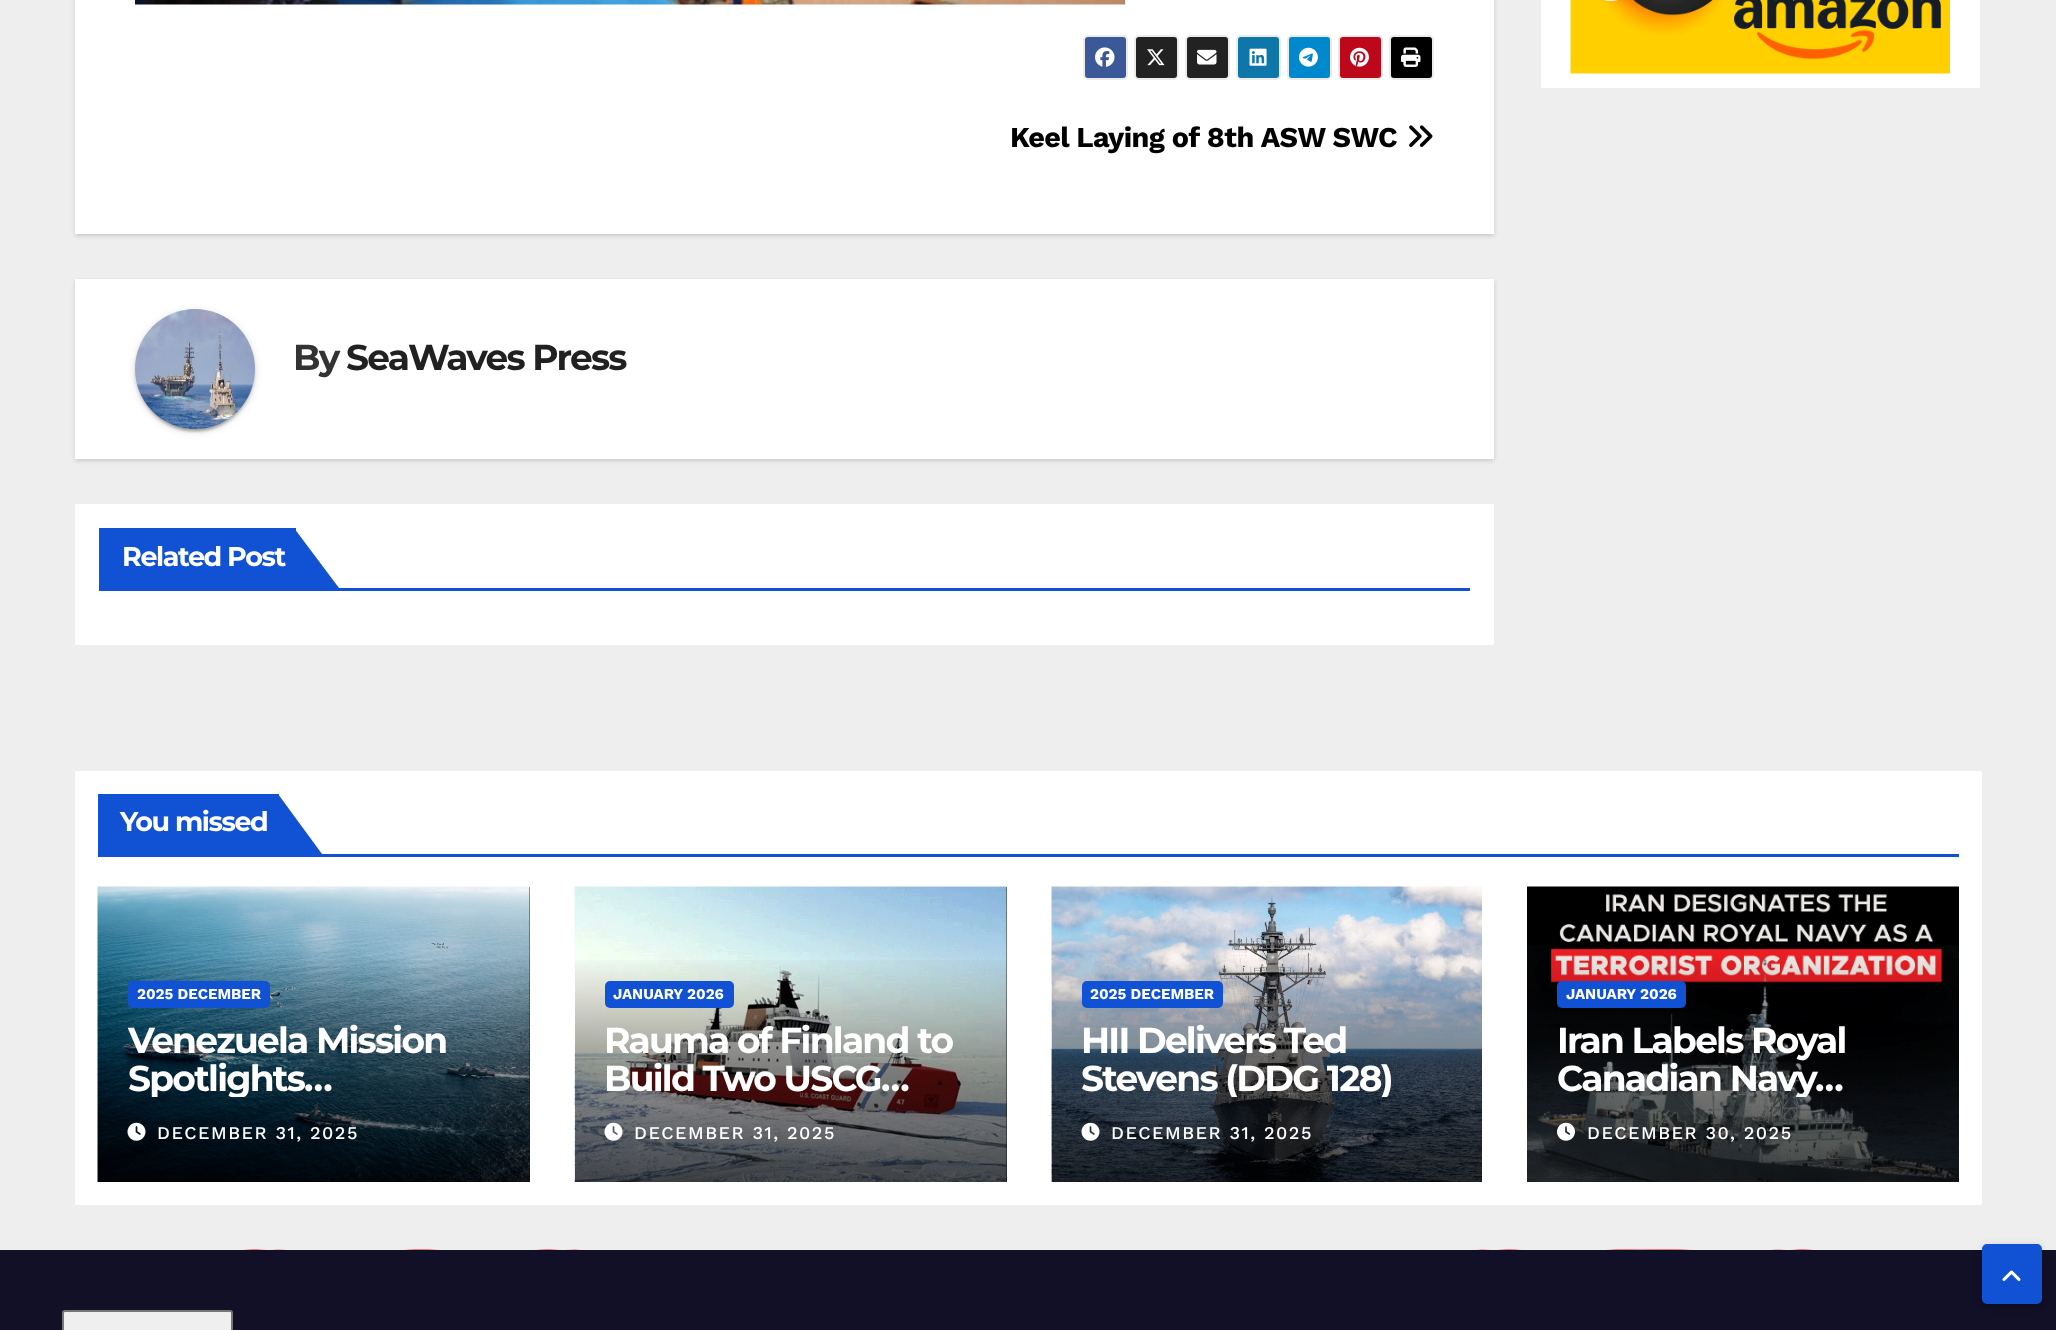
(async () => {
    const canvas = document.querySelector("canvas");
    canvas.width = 2056;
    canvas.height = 1330;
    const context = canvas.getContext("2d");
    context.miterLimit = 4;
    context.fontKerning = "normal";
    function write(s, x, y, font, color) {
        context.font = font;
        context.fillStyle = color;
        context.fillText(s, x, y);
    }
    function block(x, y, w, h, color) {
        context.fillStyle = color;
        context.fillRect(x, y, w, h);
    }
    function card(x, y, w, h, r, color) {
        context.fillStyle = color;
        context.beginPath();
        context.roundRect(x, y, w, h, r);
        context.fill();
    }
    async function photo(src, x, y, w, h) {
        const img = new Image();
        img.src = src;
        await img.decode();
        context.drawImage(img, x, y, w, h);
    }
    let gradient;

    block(0, 0, 2056, 1330, "rgb(238, 238, 238)");
    block(1541, 0, 439, 88, "rgb(255, 255, 255)");
    await photo("media/1.png", 1570, 0, 380, 74);
    context.fillStyle = "rgba(0, 0, 0, 0.15)";
    context.filter = "blur(2px)";
    context.beginPath();
    context.rect(75, -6, 1419, 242);
    context.fill();
    context.filter = "none";
    block(75, 0, 1419, 234, "rgb(255, 255, 255)");
    await photo("media/2.png", 135, 0, 990, 5);
    context.fillStyle = "rgb(59, 89, 152)";
    context.beginPath();
    context.roundRect(1084, 36, 43, 43, 4);
    context.fill();
    context.strokeStyle = "rgb(235, 235, 235)";
    context.lineWidth = 2;
    context.stroke();
    await photo("media/3.png", 1095, 47, 20, 20);
    context.fillStyle = "rgb(34, 34, 34)";
    context.beginPath();
    context.roundRect(1135, 36, 43, 43, 4);
    context.fill();
    context.stroke();
    await photo("media/4.png", 1147, 49, 18, 17);
    context.beginPath();
    context.roundRect(1186, 36, 43, 43, 4);
    context.fill();
    context.stroke();
    await photo("media/5.png", 1197, 49, 20, 16);
    context.fillStyle = "rgb(14, 118, 168)";
    context.beginPath();
    context.roundRect(1237, 36, 43, 43, 4);
    context.fill();
    context.stroke();
    await photo("media/6.png", 1249, 48, 18, 18);
    context.fillStyle = "rgb(0, 136, 204)";
    context.beginPath();
    context.roundRect(1288, 36, 43, 43, 4);
    context.fill();
    context.stroke();
    await photo("media/7.png", 1299, 47, 19, 20);
    context.fillStyle = "rgb(189, 8, 28)";
    context.beginPath();
    context.roundRect(1339, 36, 43, 43, 4);
    context.fill();
    context.stroke();
    await photo("media/8.png", 1350, 47, 19, 20);
    context.fillStyle = "rgb(0, 0, 0)";
    context.beginPath();
    context.roundRect(1390, 36, 43, 43, 4);
    context.fill();
    context.stroke();
    await photo("media/9.png", 1401, 47, 20, 20);
    context.letterSpacing = "-0.6px";
    write("Keel Laying of 8th ASW SWC", 1010, 147, "bold 28.75px Work Sans", "rgb(0, 0, 0)");
    await photo("media/10.png", 1409, 125, 24, 22);
    context.fillStyle = "rgba(0, 0, 0, 0.15)";
    context.filter = "blur(2px)";
    context.beginPath();
    context.rect(75, 281, 1419, 180);
    context.fill();
    context.filter = "none";
    block(75, 279, 1419, 180, "rgb(255, 255, 255)");
    context.fillStyle = "rgba(0, 0, 0, 0.12)";
    context.filter = "blur(4px)";
    context.beginPath();
    context.roundRect(135, 311, 120, 120, 60);
    context.fill();
    context.filter = "none";
    context.fillStyle = "rgba(0, 0, 0, 0.2)";
    context.filter = "blur(1px)";
    context.beginPath();
    context.roundRect(138, 317, 114, 114, 57);
    context.fill();
    context.filter = "none";
    context.fillStyle = "rgba(0, 0, 0, 0.14)";
    context.filter = "blur(1.5px)";
    context.beginPath();
    context.roundRect(135, 312, 120, 120, 60);
    context.fill();
    context.filter = "none";
    await photo("media/11.png", 135, 309, 120, 120);
    context.letterSpacing = "-1.75px";
    write("By", 293, 370, "bold 36px Montserrat", "rgb(51, 51, 51)");
    write("SeaWaves Press", 346, 370, "bold 36px Montserrat", "rgb(33, 33, 33)");
    block(75, 504, 1419, 141, "rgb(255, 255, 255)");
    block(99, 588, 1371, 3, "rgb(17, 81, 211)");
    block(99, 528, 197, 60, "rgb(17, 81, 211)");
    context.letterSpacing = "-1.4px";
    write("Related Post", 122, 566, "bold 27px Montserrat", "rgb(255, 255, 255)");
    context.fillStyle = "rgb(17, 81, 211)";
    context.beginPath();
    context.moveTo(294, 588);
    context.lineTo(294, 528);
    context.lineTo(339, 588);
    context.closePath();
    context.fill();
    block(75, 771, 1907, 434, "rgb(255, 255, 255)");
    block(98, 854, 1861, 3, "rgb(17, 81, 211)");
    block(98, 794, 181, 60, "rgb(17, 81, 211)");
    write("You missed", 120, 831, "bold 27px Montserrat", "rgb(255, 255, 255)");
    context.fillStyle = "rgb(17, 81, 211)";
    context.beginPath();
    context.moveTo(278, 854);
    context.lineTo(278, 794);
    context.lineTo(322, 854);
    context.closePath();
    context.fill();
    block(529, 887, 1, 295, "rgb(51, 51, 51)");
    await photo("media/12.png", 97, 886, 433, 296);
    gradient = context.createLinearGradient(314, 954, 314, 1182);
    gradient.addColorStop(0, "rgba(0, 0, 0, 0)");
    gradient.addColorStop(0.5, "rgba(0, 0, 0, 0.4)");
    gradient.addColorStop(1, "rgba(0, 0, 0, 0.7)");
    context.fillStyle = gradient;
    context.fillRect(98, 960, 432, 222);
    card(128, 981, 142, 27, 5, "rgb(17, 81, 211)");
    context.letterSpacing = "0px";
    write("2025 DECEMBER", 137, 999, "bold 15px Work Sans", "rgb(255, 255, 255)");
    context.save();
    context.beginPath();
    context.rect(128, 1022, 372, 75);
    context.clip();
    context.letterSpacing = "-1.75px";
    write("Venezuela Mission", 128, 1053, "bold 36px Montserrat", "rgb(255, 255, 255)");
    write("Spotlights…", 128, 1091, "bold 36px Montserrat", "rgb(255, 255, 255)");
    context.restore();
    await photo("media/13.png", 127, 1122, 19, 19);
    context.letterSpacing = "1.5px";
    write("DECEMBER 31, 2025", 157, 1139, "500 18px Work Sans", "rgb(255, 255, 255)");
    block(1006, 887, 1, 295, "rgb(51, 51, 51)");
    await photo("media/14.png", 574, 886, 433, 296);
    gradient = context.createLinearGradient(791, 954, 791, 1182);
    gradient.addColorStop(0, "rgba(0, 0, 0, 0)");
    gradient.addColorStop(0.5, "rgba(0, 0, 0, 0.4)");
    gradient.addColorStop(1, "rgba(0, 0, 0, 0.7)");
    context.fillStyle = gradient;
    context.fillRect(575, 960, 432, 222);
    card(605, 981, 129, 27, 5, "rgb(17, 81, 211)");
    context.letterSpacing = "0px";
    write("JANUARY 2026", 613, 999, "bold 15px Work Sans", "rgb(255, 255, 255)");
    context.letterSpacing = "-1.75px";
    write("Rauma of Finland to", 604, 1053, "bold 36px Montserrat", "rgb(255, 255, 255)");
    write("Build Two USCG…", 604, 1091, "bold 36px Montserrat", "rgb(255, 255, 255)");
    await photo("media/15.png", 604, 1122, 19, 19);
    context.letterSpacing = "1.5px";
    write("DECEMBER 31, 2025", 634, 1139, "500 18px Work Sans", "rgb(255, 255, 255)");
    await photo("media/16.png", 1051, 886, 431, 296);
    card(1082, 981, 141, 27, 5, "rgb(17, 81, 211)");
    context.letterSpacing = "0px";
    write("2025 DECEMBER", 1090, 999, "bold 15px Work Sans", "rgb(255, 255, 255)");
    context.letterSpacing = "-1.75px";
    write("HII Delivers Ted", 1081, 1053, "bold 36px Montserrat", "rgb(255, 255, 255)");
    context.save();
    context.beginPath();
    context.rect(1082, 1022, 370, 75);
    context.clip();
    write("Stevens (DDG 128)", 1081, 1091, "bold 36px Montserrat", "rgb(255, 255, 255)");
    context.restore();
    await photo("media/17.png", 1081, 1122, 19, 19);
    context.letterSpacing = "1.5px";
    write("DECEMBER 31, 2025", 1111, 1139, "500 18px Work Sans", "rgb(255, 255, 255)");
    await photo("media/18.png", 1527, 886, 432, 296);
    card(1557, 981, 129, 27, 5, "rgb(17, 81, 211)");
    context.letterSpacing = "0px";
    write("JANUARY 2026", 1566, 999, "bold 15px Work Sans", "rgb(255, 255, 255)");
    context.letterSpacing = "-1.75px";
    write("Iran Labels Royal", 1557, 1053, "bold 36px Montserrat", "rgb(255, 255, 255)");
    context.save();
    context.beginPath();
    context.rect(1557, 1022, 372, 75);
    context.clip();
    write("Canadian Navy…", 1557, 1091, "bold 36px Montserrat", "rgb(255, 255, 255)");
    context.restore();
    await photo("media/19.png", 1557, 1122, 18, 19);
    context.letterSpacing = "1.5px";
    write("DECEMBER 30, 2025", 1587, 1139, "500 18px Work Sans", "rgb(255, 255, 255)");
    await photo("media/20.png", 244, 1249, 1569, 1);
    block(0, 1250, 2056, 80, "rgb(18, 16, 38)");
    context.fillStyle = "rgb(239, 239, 239)";
    context.beginPath();
    context.roundRect(63, 1311, 169, 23, 2);
    context.fill();
    context.strokeStyle = "rgb(118, 118, 118)";
    context.stroke();
    context.fillStyle = "rgba(0, 0, 0, 0.12)";
    context.filter = "blur(4px)";
    context.beginPath();
    context.roundRect(1982, 1245, 60, 60, 5);
    context.fill();
    context.filter = "none";
    context.fillStyle = "rgba(0, 0, 0, 0.14)";
    context.filter = "blur(1.5px)";
    context.beginPath();
    context.roundRect(1982, 1247, 60, 60, 5);
    context.fill();
    context.filter = "none";
    context.fillStyle = "rgb(17, 81, 211)";
    context.beginPath();
    context.roundRect(1983.5, 1245.5, 57, 57, 3.5);
    context.fill();
    context.strokeStyle = "rgb(17, 81, 211)";
    context.lineWidth = 3;
    context.stroke();
    await photo("media/21.png", 2002, 1270, 19, 11);
})();
